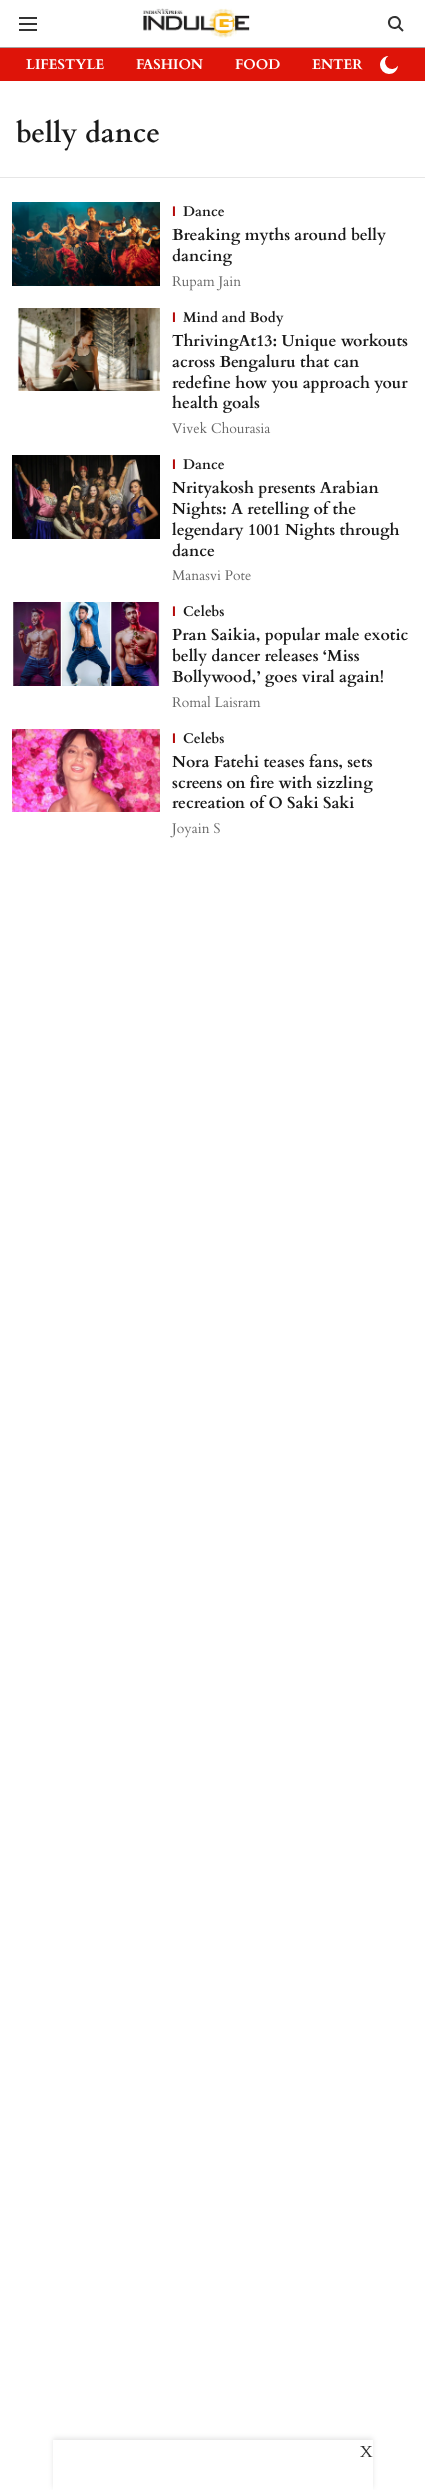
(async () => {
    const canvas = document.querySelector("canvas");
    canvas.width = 425;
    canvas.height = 2490;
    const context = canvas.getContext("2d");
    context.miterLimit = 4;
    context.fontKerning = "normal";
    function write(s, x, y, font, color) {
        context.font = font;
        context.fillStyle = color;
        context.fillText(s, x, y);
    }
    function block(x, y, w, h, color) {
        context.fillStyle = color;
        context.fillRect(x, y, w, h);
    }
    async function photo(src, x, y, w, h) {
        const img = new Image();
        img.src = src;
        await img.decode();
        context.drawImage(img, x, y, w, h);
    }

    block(0, 0, 425, 2490, "rgb(255, 255, 255)");
    block(0, 47, 425, 1, "rgb(164, 164, 164)");
    await photo("media/1.png", 19, 17, 18, 14);
    await photo("media/2.png", 143, 8, 107, 30);
    await photo("media/3.png", 387, 16, 17, 16);
    block(0, 48, 425, 33, "rgb(222, 20, 9)");
    write("LIFESTYLE", 26, 69, "bold 14px Cardo", "rgb(255, 255, 255)");
    write("FASHION", 136, 69, "bold 14px Cardo", "rgb(255, 255, 255)");
    write("FOOD", 235, 69, "bold 14px Cardo", "rgb(255, 255, 255)");
    write("ENTER", 312, 69, "bold 14px Cardo", "rgb(255, 255, 255)");
    await photo("media/4.png", 380, 56, 18, 18);
    block(0, 177, 425, 1, "rgb(230, 230, 230)");
    write("belly dance", 16, 142, "bold 28px Cardo", "rgb(26, 26, 26)");
    await photo("media/5.png", 12, 202, 148, 84);
    context.save();
    context.beginPath();
    context.rect(172, 202, 3, 19);
    context.clip();
    write("I", 172, 216, "bold 14px Liberation Sans", "rgb(179, 10, 10)");
    context.restore();
    write("Dance", 183, 216, "bold 14px Cardo", "rgb(26, 26, 26)");
    write("Breaking myths around belly", 172, 240, "bold 16px Cardo", "rgb(26, 26, 26)");
    write("dancing", 172, 261, "bold 16px Cardo", "rgb(26, 26, 26)");
    await photo("media/6.png", 172, 276, 69, 15);
    await photo("media/7.png", 12, 308, 148, 83);
    context.save();
    context.beginPath();
    context.rect(172, 308, 3, 19);
    context.clip();
    write("I", 172, 322, "bold 14px Liberation Sans", "rgb(179, 10, 10)");
    context.restore();
    write("Mind and Body", 183, 322, "bold 14px Cardo", "rgb(26, 26, 26)");
    write("ThrivingAt13: Unique workouts", 172, 346, "bold 16px Cardo", "rgb(26, 26, 26)");
    write("across Bengaluru that can", 172, 367, "bold 16px Cardo", "rgb(26, 26, 26)");
    write("redefine how you approach your", 172, 388, "bold 16px Cardo", "rgb(26, 26, 26)");
    write("health goals", 172, 408, "bold 16px Cardo", "rgb(26, 26, 26)");
    await photo("media/8.png", 172, 421, 99, 13);
    await photo("media/9.png", 12, 455, 148, 84);
    context.save();
    context.beginPath();
    context.rect(172, 455, 3, 19);
    context.clip();
    write("I", 172, 469, "bold 14px Liberation Sans", "rgb(179, 10, 10)");
    context.restore();
    write("Dance", 183, 469, "bold 14px Cardo", "rgb(26, 26, 26)");
    write("Nrityakosh presents Arabian", 172, 493, "bold 16px Cardo", "rgb(26, 26, 26)");
    write("Nights: A retelling of the", 172, 514, "bold 16px Cardo", "rgb(26, 26, 26)");
    write("legendary 1001 Nights through", 172, 535, "bold 16px Cardo", "rgb(26, 26, 26)");
    write("dance", 172, 556, "bold 16px Cardo", "rgb(26, 26, 26)");
    await photo("media/10.png", 172, 570, 79, 11);
    await photo("media/11.png", 12, 602, 148, 84);
    context.save();
    context.beginPath();
    context.rect(172, 602, 3, 19);
    context.clip();
    write("I", 172, 616, "bold 14px Liberation Sans", "rgb(179, 10, 10)");
    context.restore();
    write("Celebs", 183, 616, "bold 14px Cardo", "rgb(26, 26, 26)");
    write("Pran Saikia, popular male exotic", 172, 640, "bold 16px Cardo", "rgb(26, 26, 26)");
    write("belly dancer releases ‘Miss", 172, 661, "bold 16px Cardo", "rgb(26, 26, 26)");
    write("Bollywood,’ goes viral again!", 172, 682, "bold 16px Cardo", "rgb(26, 26, 26)");
    await photo("media/12.png", 172, 695, 89, 13);
    await photo("media/13.png", 12, 729, 148, 83);
    context.save();
    context.beginPath();
    context.rect(172, 729, 3, 19);
    context.clip();
    write("I", 172, 743, "bold 14px Liberation Sans", "rgb(179, 10, 10)");
    context.restore();
    write("Celebs", 183, 743, "bold 14px Cardo", "rgb(26, 26, 26)");
    write("Nora Fatehi teases fans, sets", 172, 767, "bold 16px Cardo", "rgb(26, 26, 26)");
    write("screens on fire with sizzling", 172, 788, "bold 16px Cardo", "rgb(26, 26, 26)");
    write("recreation of O Saki Saki", 172, 808, "bold 16px Cardo", "rgb(26, 26, 26)");
    await photo("media/14.png", 170, 823, 50, 15);
    context.save();
    context.beginPath();
    context.moveTo(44, 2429);
    context.lineTo(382, 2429);
    context.lineTo(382, 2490);
    context.lineTo(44, 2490);
    context.closePath();
    context.moveTo(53, 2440);
    context.lineTo(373, 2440);
    context.lineTo(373, 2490);
    context.lineTo(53, 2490);
    context.closePath();
    context.clip("evenodd");
    context.fillStyle = "rgba(0, 0, 0, 0.1)";
    context.filter = "blur(2.5px)";
    context.beginPath();
    context.rect(53, 2438, 320, 50);
    context.fill();
    context.filter = "none";
    context.restore();
    await photo("media/15.png", 360, 2446, 13, 11);
})();
